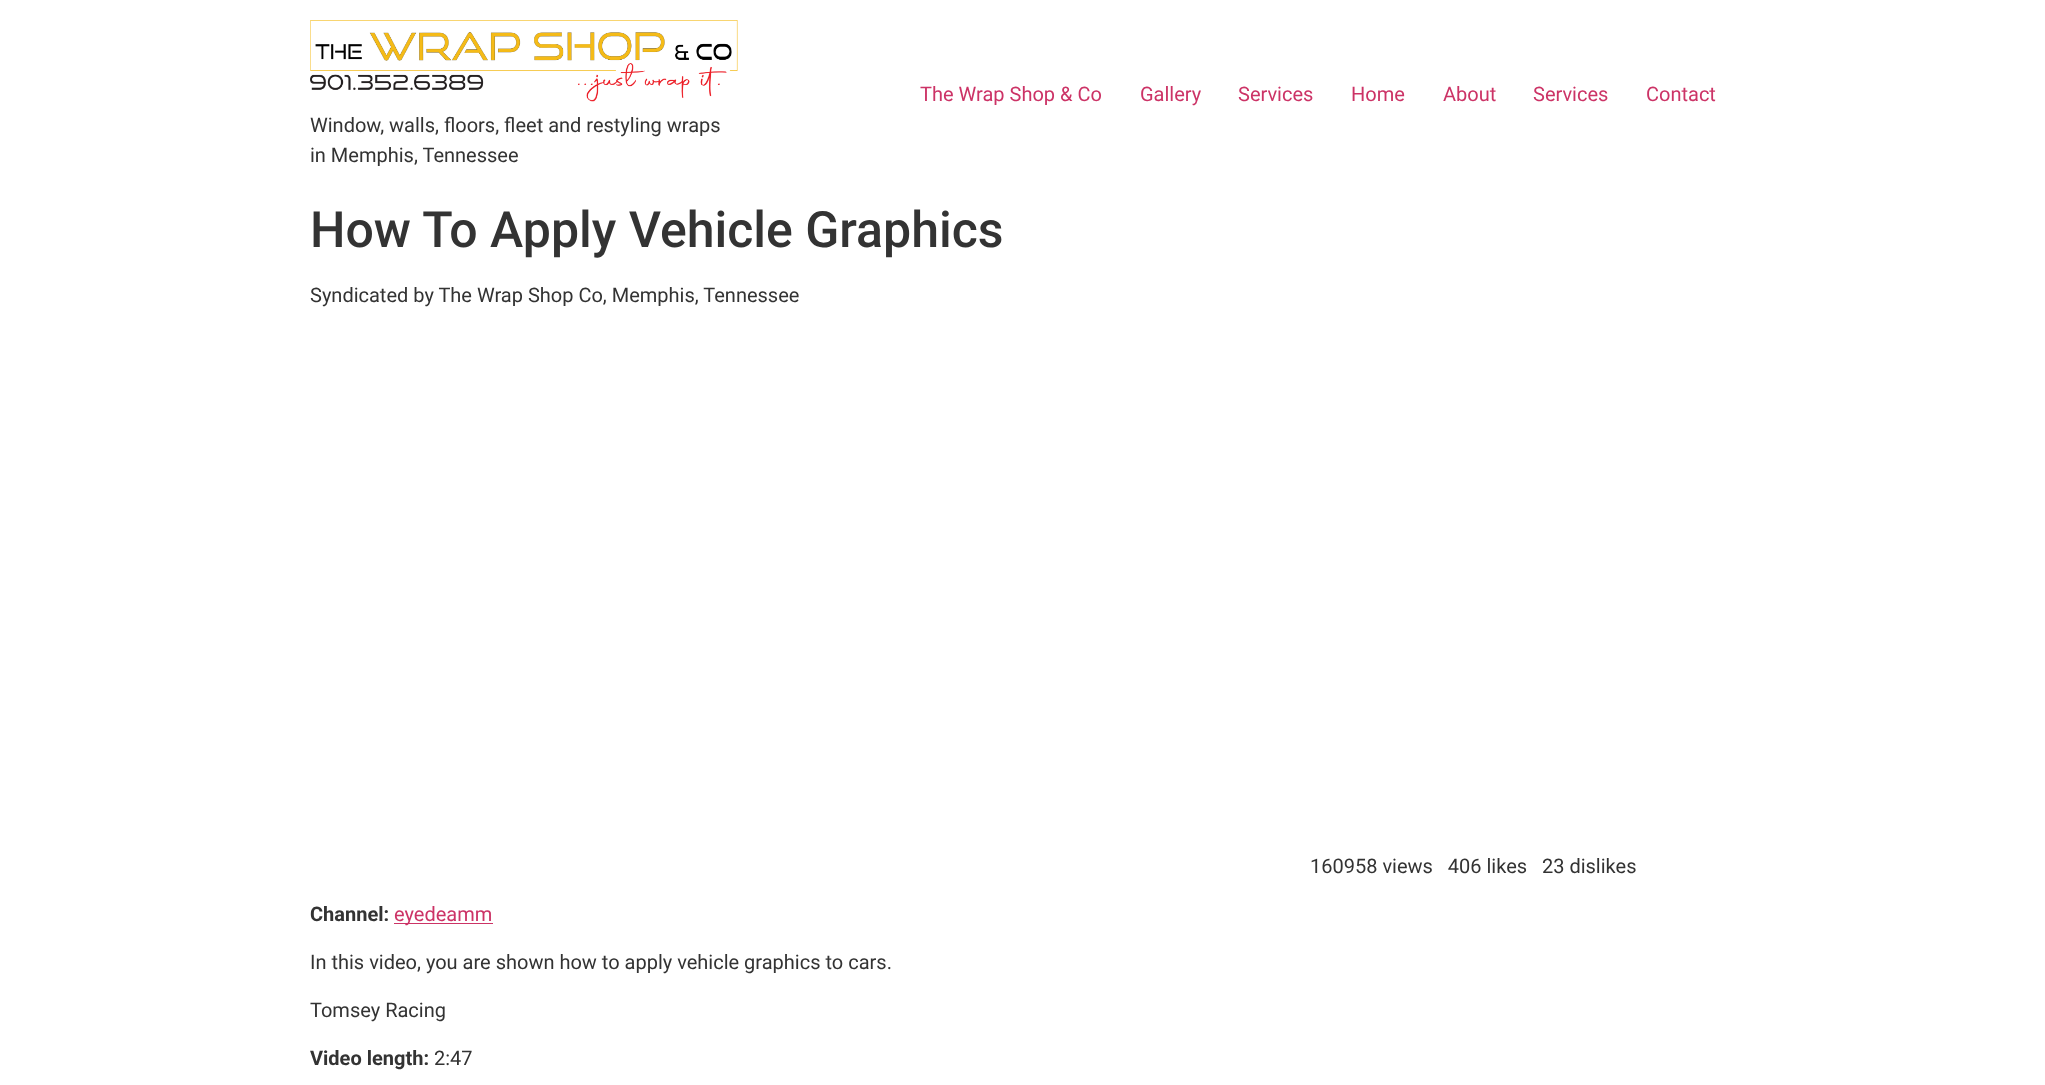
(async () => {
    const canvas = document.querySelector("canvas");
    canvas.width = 2045;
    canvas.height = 1085;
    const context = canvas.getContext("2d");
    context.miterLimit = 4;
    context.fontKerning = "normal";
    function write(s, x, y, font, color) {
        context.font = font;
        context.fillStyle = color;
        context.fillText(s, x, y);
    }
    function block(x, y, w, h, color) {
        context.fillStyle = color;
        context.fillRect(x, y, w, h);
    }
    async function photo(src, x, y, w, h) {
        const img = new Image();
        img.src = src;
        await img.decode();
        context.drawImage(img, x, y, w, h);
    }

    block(0, 0, 2045, 1085, "rgb(255, 255, 255)");
    write("The Wrap Shop & Co", 920, 101, "20px Roboto", "rgb(204, 51, 102)");
    write("Gallery", 1140, 101, "20px Roboto", "rgb(204, 51, 102)");
    write("Services", 1238, 101, "20px Roboto", "rgb(204, 51, 102)");
    write("Home", 1351, 101, "20px Roboto", "rgb(204, 51, 102)");
    write("About", 1443, 101, "20px Roboto", "rgb(204, 51, 102)");
    write("Services", 1533, 101, "20px Roboto", "rgb(204, 51, 102)");
    write("Contact", 1646, 101, "20px Roboto", "rgb(204, 51, 102)");
    await photo("media/1.png", 310, 20, 428, 82);
    write("Window, walls, floors, fleet and restyling wraps", 310, 132, "20px Roboto", "rgb(51, 51, 51)");
    write("in Memphis, Tennessee", 310, 162, "20px Roboto", "rgb(51, 51, 51)");
    write("How To Apply Vehicle Graphics", 310, 247, "500 50px Roboto", "rgb(51, 51, 51)");
    write("Syndicated by The Wrap Shop Co, Memphis, Tennessee", 310, 302, "20px Roboto", "rgb(51, 51, 51)");
    write("160958 views   406 likes   23 dislikes", 1310, 873, "20px Roboto", "rgb(51, 51, 51)");
    write("Channel:", 310, 921, "bold 20px Roboto", "rgb(51, 51, 51)");
    block(394, 923, 99, 1, "rgb(204, 51, 102)");
    write("eyedeamm", 394, 921, "20px Roboto", "rgb(204, 51, 102)");
    write("In this video, you are shown how to apply vehicle graphics to cars.", 310, 969, "20px Roboto", "rgb(51, 51, 51)");
    write("Tomsey Racing", 310, 1017, "20px Roboto", "rgb(51, 51, 51)");
    write("Video length:", 310, 1065, "bold 20px Roboto", "rgb(51, 51, 51)");
    write("2:47", 434, 1065, "20px Roboto", "rgb(51, 51, 51)");
})();
